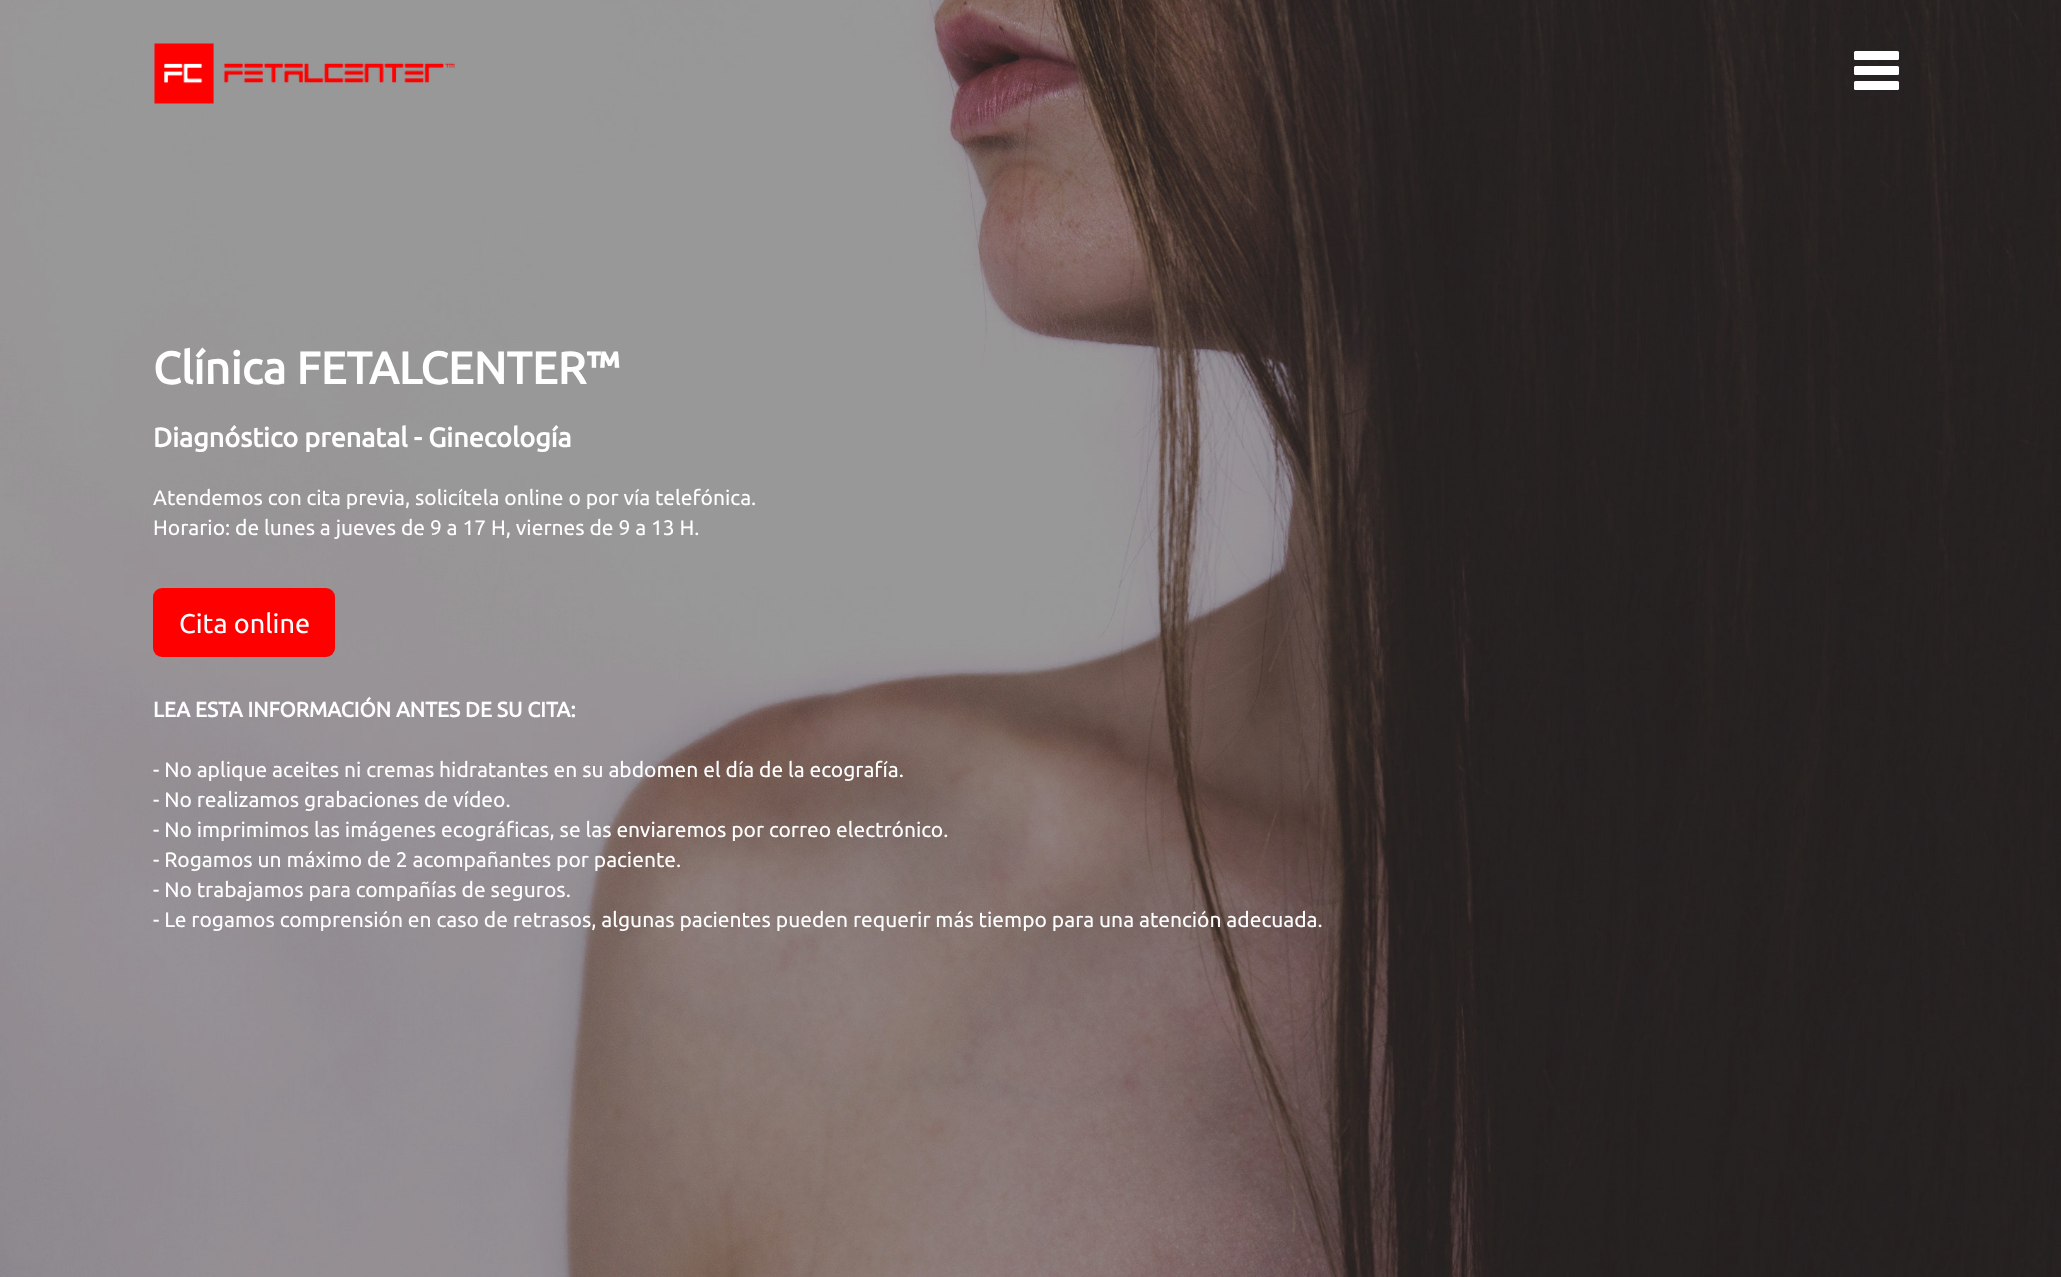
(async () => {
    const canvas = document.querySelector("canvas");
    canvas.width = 2061;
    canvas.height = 1277;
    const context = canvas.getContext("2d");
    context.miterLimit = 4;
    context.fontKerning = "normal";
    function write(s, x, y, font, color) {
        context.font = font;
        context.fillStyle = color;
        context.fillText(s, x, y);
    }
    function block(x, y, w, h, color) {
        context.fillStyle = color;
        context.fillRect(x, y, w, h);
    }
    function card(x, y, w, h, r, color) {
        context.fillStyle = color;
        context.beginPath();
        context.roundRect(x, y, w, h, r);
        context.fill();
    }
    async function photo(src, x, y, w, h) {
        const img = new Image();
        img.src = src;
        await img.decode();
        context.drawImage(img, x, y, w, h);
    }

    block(0, 0, 2061, 1277, "rgb(255, 255, 255)");
    await photo("media/1.png", 0, 0, 2061, 1277);
    await photo("media/2.png", 154, 43, 301, 61);
    card(1854, 51, 45, 9, 1.5, "rgb(255, 255, 255)");
    card(1854, 66, 45, 9, 1.5, "rgb(255, 255, 255)");
    card(1854, 81, 45, 9, 1.5, "rgb(255, 255, 255)");
    write("Clínica FETALCENTER™", 153, 384, "bold 45px Ubuntu", "rgb(255, 255, 255)");
    write("Diagnóstico prenatal - Ginecología", 153, 447, "bold 27px Ubuntu", "rgb(255, 255, 255)");
    write("Atendemos con cita previa, solicítela online o por vía telefónica.", 153, 505, "21px Ubuntu", "rgb(255, 255, 255)");
    write("Horario: de lunes a jueves de 9 a 17 H, viernes de 9 a 13 H.", 153, 535, "21px Ubuntu", "rgb(255, 255, 255)");
    card(153, 588, 182, 69, 9, "rgb(255, 0, 0)");
    write("Cita online", 179, 633, "27px Ubuntu", "rgb(255, 255, 255)");
    write("LEA ESTA INFORMACIÓN ANTES DE SU CITA:", 153, 717, "bold 21px Ubuntu", "rgb(255, 255, 255)");
    write("- No aplique aceites ni cremas hidratantes en su abdomen el día de la ecografía.", 153, 777, "21px Ubuntu", "rgb(255, 255, 255)");
    write("- No realizamos grabaciones de vídeo.", 153, 807, "21px Ubuntu", "rgb(255, 255, 255)");
    write("- No imprimimos las imágenes ecográficas, se las enviaremos por correo electrónico.", 153, 837, "21px Ubuntu", "rgb(255, 255, 255)");
    write("- Rogamos un máximo de 2 acompañantes por paciente.", 153, 867, "21px Ubuntu", "rgb(255, 255, 255)");
    write("- No trabajamos para compañías de seguros.", 153, 897, "21px Ubuntu", "rgb(255, 255, 255)");
    write("- Le rogamos comprensión en caso de retrasos, algunas pacientes pueden requerir más tiempo para una atención adecuada.", 153, 927, "21px Ubuntu", "rgb(255, 255, 255)");
})();
